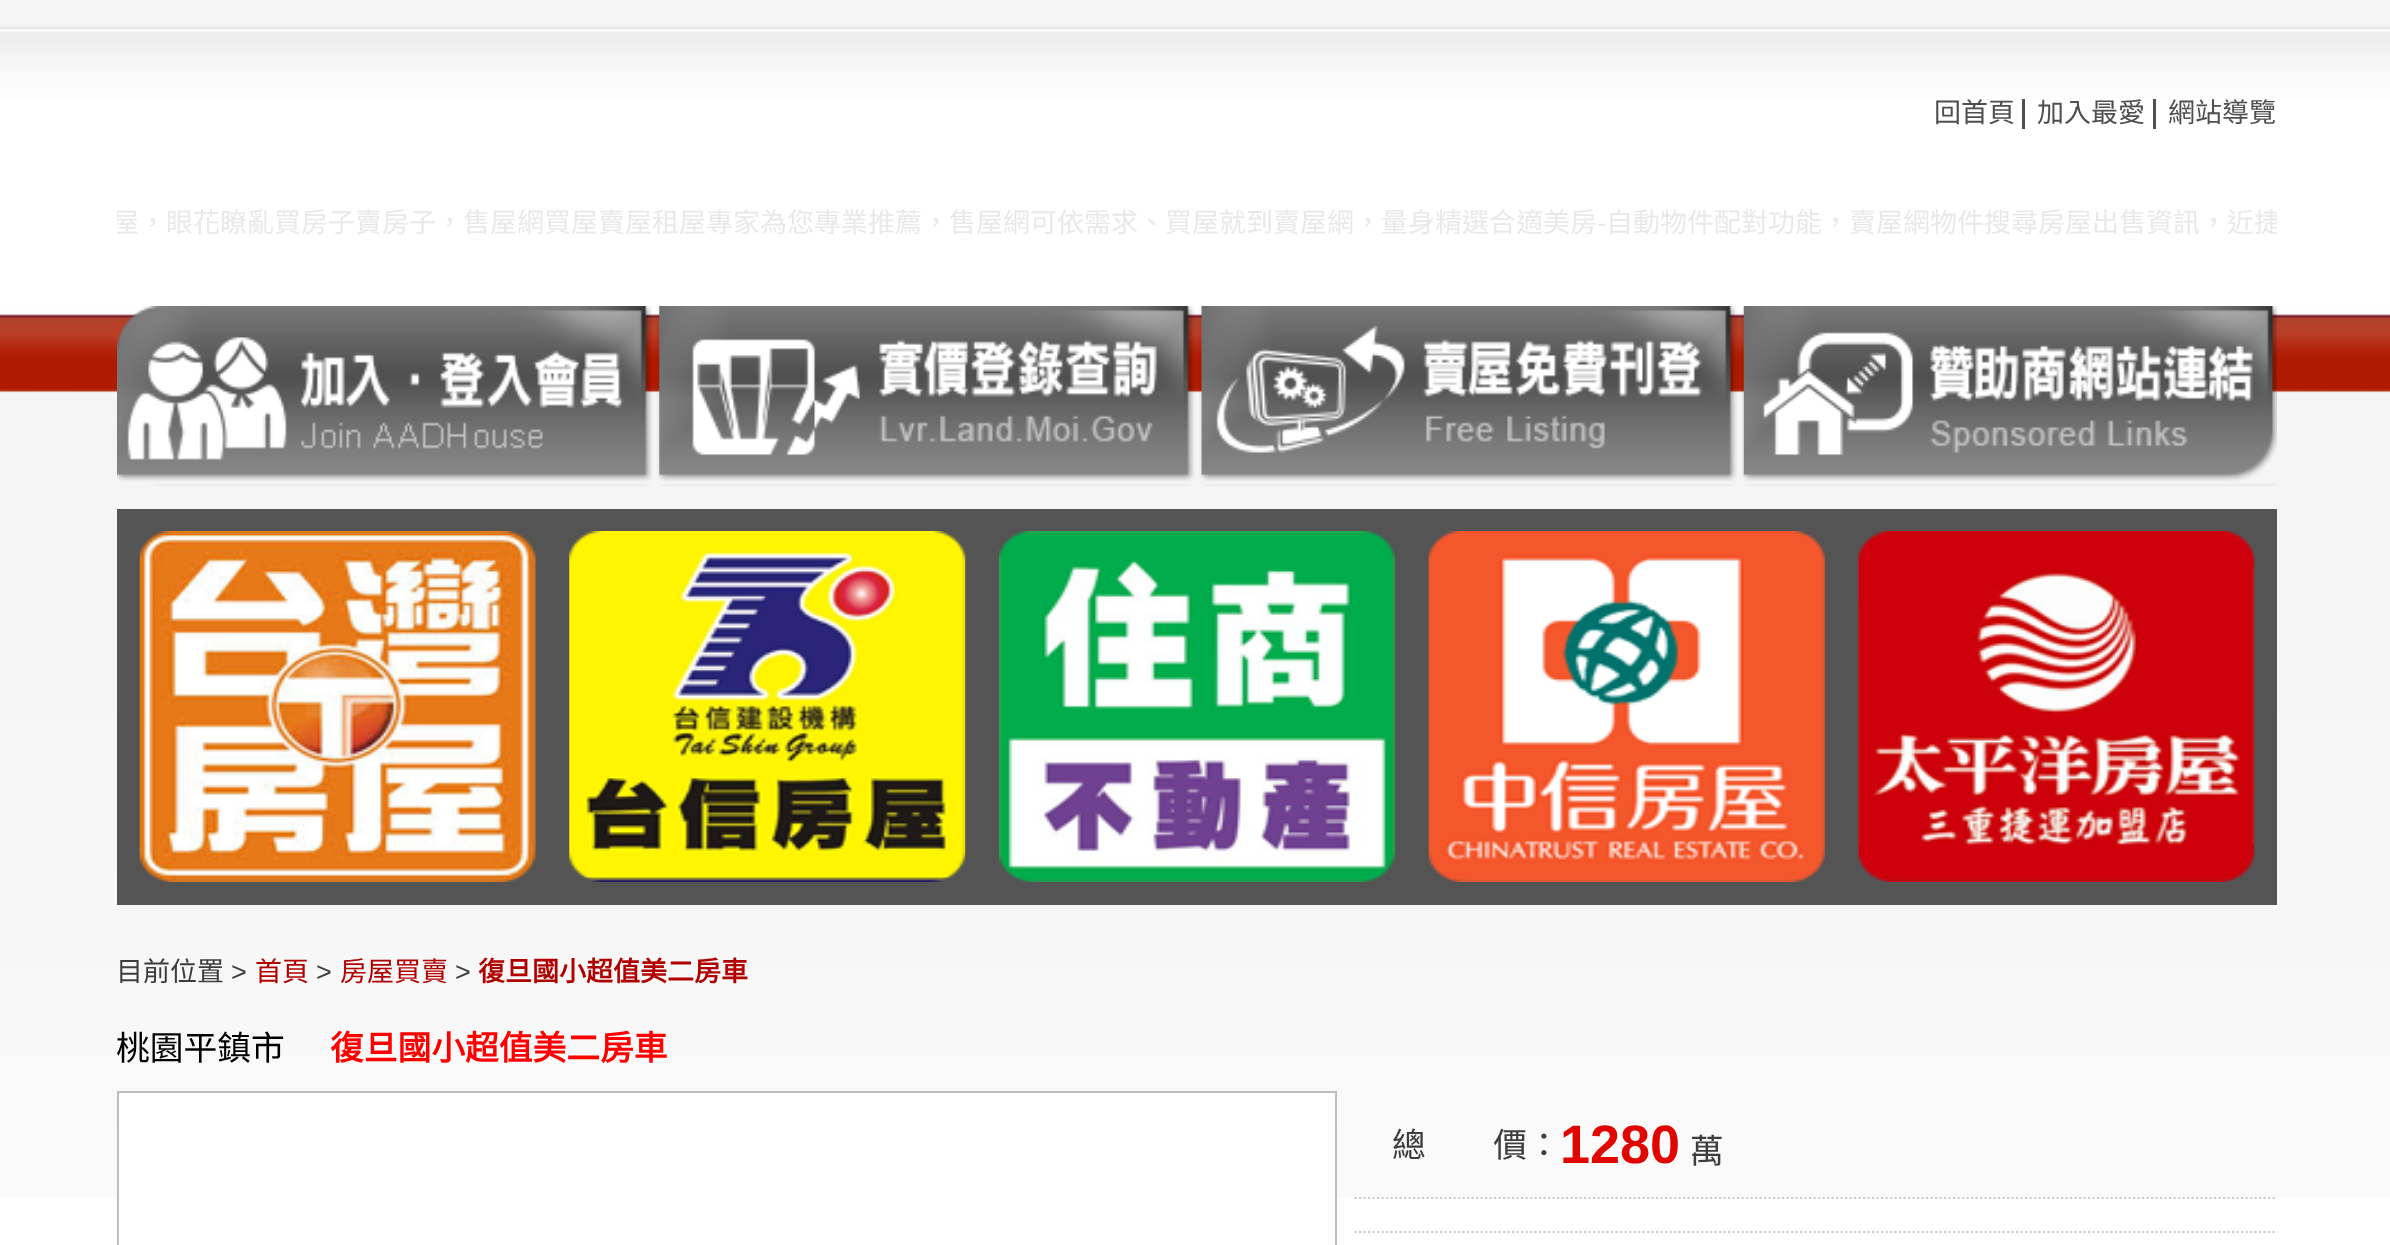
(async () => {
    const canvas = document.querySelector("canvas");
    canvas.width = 2390;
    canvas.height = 1245;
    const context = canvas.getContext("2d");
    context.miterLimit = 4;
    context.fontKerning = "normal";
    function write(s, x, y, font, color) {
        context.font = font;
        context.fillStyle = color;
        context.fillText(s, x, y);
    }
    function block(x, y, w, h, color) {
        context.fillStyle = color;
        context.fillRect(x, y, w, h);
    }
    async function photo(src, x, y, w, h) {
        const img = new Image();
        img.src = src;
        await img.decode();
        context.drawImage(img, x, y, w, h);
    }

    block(0, 0, 2390, 1245, "rgb(255, 255, 255)");
    await photo("media/1.png", 0, 0, 2390, 1197);
    write("回首頁", 1934, 122, "27px Noto Sans CJK TC", "rgb(79, 79, 79)");
    block(2022, 99, 3, 30, "rgb(79, 79, 79)");
    write("加入最愛", 2037, 122, "27px Noto Sans CJK TC", "rgb(79, 79, 79)");
    block(2153, 99, 3, 30, "rgb(79, 79, 79)");
    write("網站導覽", 2168, 122, "27px Noto Sans CJK TC", "rgb(79, 79, 79)");
    context.save();
    context.beginPath();
    context.rect(117, 185, 2160, 76);
    context.clip();
    write("屋，眼花瞭亂買房子賣房子，售屋網買屋賣屋租屋專家為您專業推薦，售屋網可依需求、買屋就到賣屋網，量身精選合適美房", 112, 232, "27px Noto Sans CJK TC", "rgb(233, 233, 233)");
    context.restore();
    write("-", 1597, 232, "27px Liberation Sans", "rgb(233, 233, 233)");
    context.save();
    context.beginPath();
    context.rect(117, 185, 2160, 76);
    context.clip();
    write("自動物件配對功能，賣屋網物件搜尋房屋出售資訊，近捷", 1606, 232, "27px Noto Sans CJK TC", "rgb(233, 233, 233)");
    context.restore();
    await photo("media/2.png", 117, 306, 542, 180);
    await photo("media/3.png", 659, 306, 542, 180);
    await photo("media/4.png", 1201, 306, 543, 180);
    await photo("media/5.png", 1743, 306, 534, 180);
    block(117, 509, 2160, 396, "rgb(84, 84, 84)");
    await photo("media/6.png", 139, 531, 397, 351);
    await photo("media/7.png", 569, 531, 397, 351);
    await photo("media/8.png", 999, 531, 396, 351);
    await photo("media/9.png", 1428, 531, 397, 351);
    await photo("media/10.png", 1858, 531, 397, 351);
    write("目前位置", 116, 981, "27px Noto Sans CJK TC", "rgb(61, 61, 61)");
    write(">", 231, 981, "27px Liberation Sans", "rgb(61, 61, 61)");
    write("首頁", 255, 981, "27px Noto Sans CJK TC", "rgb(177, 0, 0)");
    write(">", 316, 981, "27px Liberation Sans", "rgb(61, 61, 61)");
    write("房屋買賣", 340, 981, "27px Noto Sans CJK TC", "rgb(177, 0, 0)");
    write(">", 455, 981, "27px Liberation Sans", "rgb(61, 61, 61)");
    write("復旦國小超值美二房車", 478, 981, "bold 27px Noto Sans CJK TC", "rgb(177, 0, 0)");
    write("桃園平鎮市", 116, 1060, "33.75px Noto Sans CJK TC", "rgb(0, 0, 0)");
    write("復旦國小超值美二房車", 330, 1060, "bold 33.75px Noto Sans CJK TC", "rgb(255, 0, 0)");
    block(119, 1093, 1216, 104, "rgb(255, 255, 255)");
    context.strokeStyle = "rgb(189, 189, 189)";
    context.lineWidth = 2;
    context.strokeRect(118, 1092, 1218, 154);
    context.beginPath();
    context.moveTo(1354.5, 1198);
    context.lineTo(2277, 1198);
    context.strokeStyle = "rgb(204, 204, 204)";
    context.lineWidth = 2.2;
    context.setLineDash([2.25, 2.25]);
    context.stroke();
    write("總　　價：", 1392, 1157, "33.75px Noto Sans CJK TC", "rgb(61, 61, 61)");
    write("1280", 1560, 1163, "bold 54px Liberation Sans", "rgb(225, 5, 0)");
    write("萬", 1690, 1163, "33.75px Noto Sans CJK TC", "rgb(61, 61, 61)");
    context.beginPath();
    context.moveTo(1354.5, 1232);
    context.lineTo(2277, 1232);
    context.stroke();
})();
